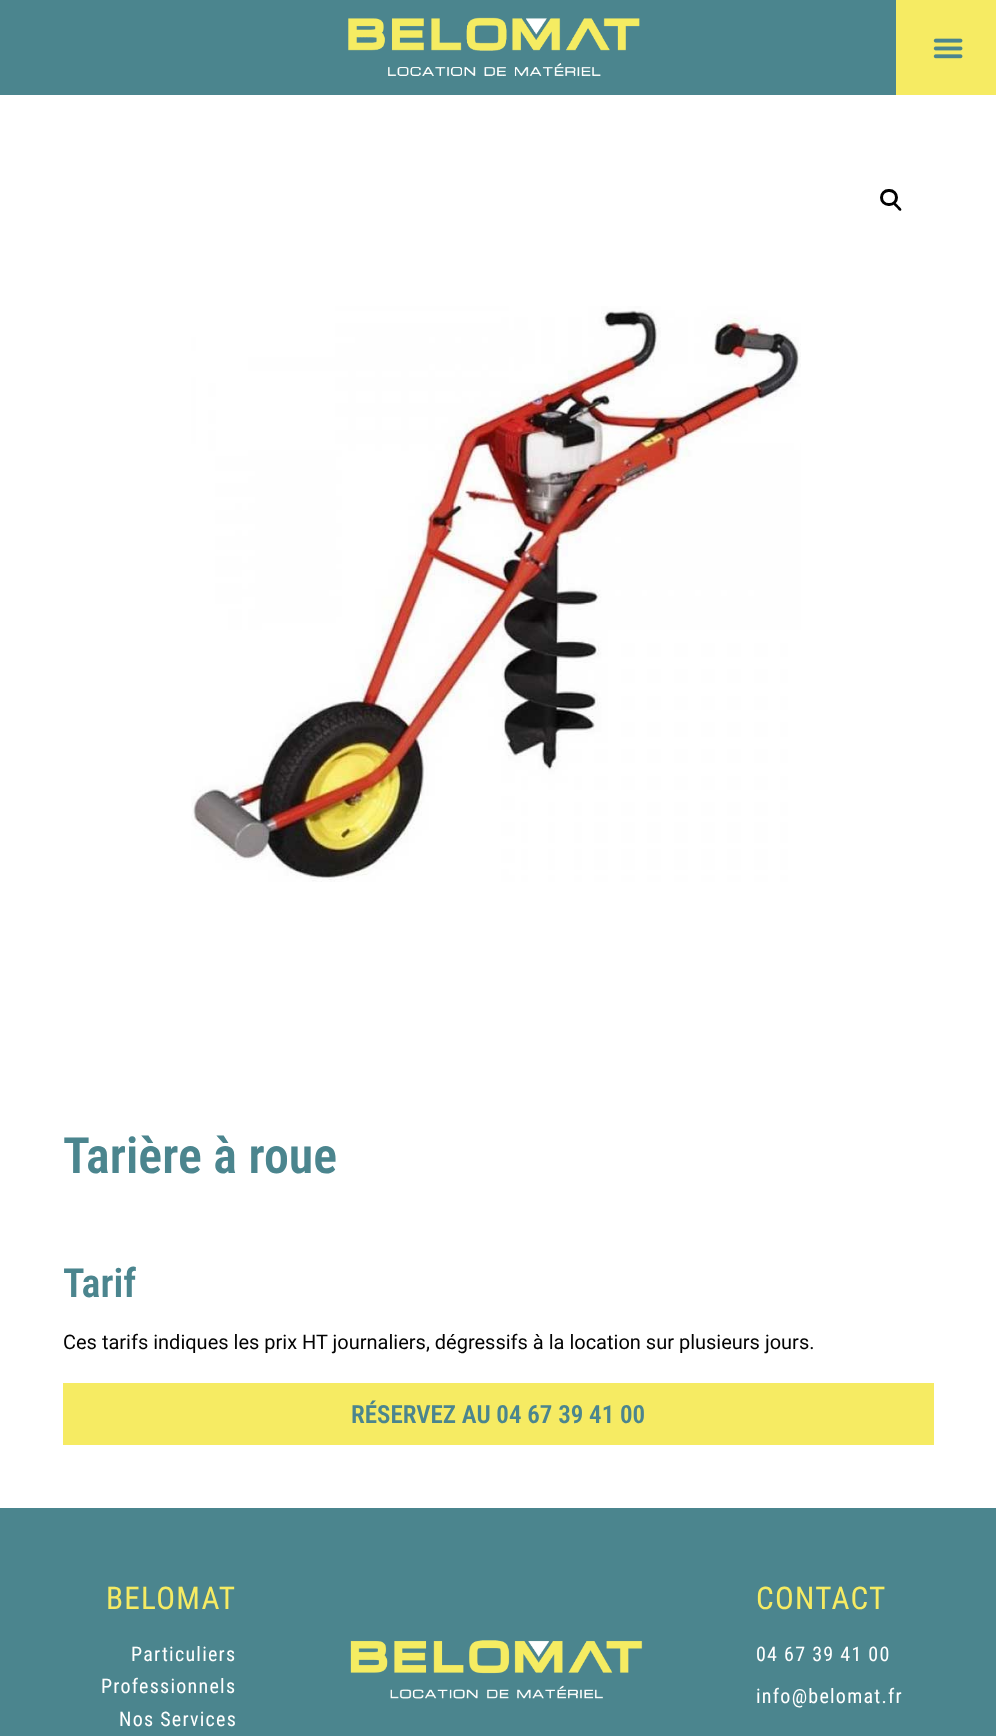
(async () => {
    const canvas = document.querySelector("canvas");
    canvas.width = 996;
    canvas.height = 1736;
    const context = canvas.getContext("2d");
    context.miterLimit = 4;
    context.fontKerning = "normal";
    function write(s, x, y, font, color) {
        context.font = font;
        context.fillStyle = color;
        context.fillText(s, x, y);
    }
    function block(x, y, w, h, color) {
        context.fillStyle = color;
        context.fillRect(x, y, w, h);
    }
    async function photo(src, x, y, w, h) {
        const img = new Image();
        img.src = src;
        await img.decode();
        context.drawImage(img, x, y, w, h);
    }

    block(0, 0, 996, 1736, "rgb(255, 255, 255)");
    block(0, 0, 896, 95, "rgb(75, 133, 142)");
    await photo("media/1.png", 348, 17, 292, 59);
    block(896, 0, 100, 95, "rgb(246, 235, 99)");
    await photo("media/2.png", 933, 38, 30, 21);
    context.beginPath();
    context.roundRect(881.5, 190.5, 15, 14, 7);
    context.strokeStyle = "rgb(0, 0, 0)";
    context.lineWidth = 3;
    context.stroke();
    context.fillStyle = "rgb(0, 0, 0)";
    context.beginPath();
    context.moveTo(894, 203.5);
    context.bezierCurveTo(895.5, 202, 897.5, 205, 898.5, 206);
    context.bezierCurveTo(899, 206.5, 902.5, 209, 901, 210.5);
    context.bezierCurveTo(899.5, 212, 897.5, 208.5, 896.5, 207.5);
    context.bezierCurveTo(896, 207, 892.5, 204.5, 894, 203.5);
    context.closePath();
    context.fill();
    await photo("media/3.png", 191, 306, 610, 576);
    write("Tarière à roue", 63, 1173, "600 50px Roboto Condensed", "rgb(75, 133, 142)");
    write("Tarif", 63, 1297, "600 40px Roboto Condensed", "rgb(75, 133, 142)");
    write("Ces tarifs indiques les prix HT journaliers, dégressifs à la location sur plusieurs jours.", 63, 1349, "20px Roboto", "rgb(2, 2, 2)");
    block(63, 1383, 871, 62, "rgb(246, 235, 99)");
    write("RÉSERVEZ AU 04 67 39 41 00", 351, 1423, "600 25px Roboto Condensed", "rgb(75, 133, 142)");
    block(0, 1508, 996, 228, "rgb(75, 133, 142)");
    context.letterSpacing = "1.25px";
    write("BELOMAT", 106, 1609, "31.25px Roboto Condensed", "rgb(246, 235, 99)");
    write("Particuliers", 131, 1661, "20px Roboto Condensed", "rgb(255, 255, 255)");
    write("Professionnels", 101, 1693, "20px Roboto Condensed", "rgb(255, 255, 255)");
    write("Nos Services", 119, 1726, "20px Roboto Condensed", "rgb(255, 255, 255)");
    await photo("media/4.png", 350, 1640, 293, 59);
    write("CONTACT", 756, 1609, "31.25px Roboto Condensed", "rgb(246, 235, 99)");
    write("04 67 39 41 00", 756, 1661, "20px Roboto Condensed", "rgb(255, 255, 255)");
    write("info@belomat.fr", 756, 1703, "20px Roboto Condensed", "rgb(255, 255, 255)");
})();
